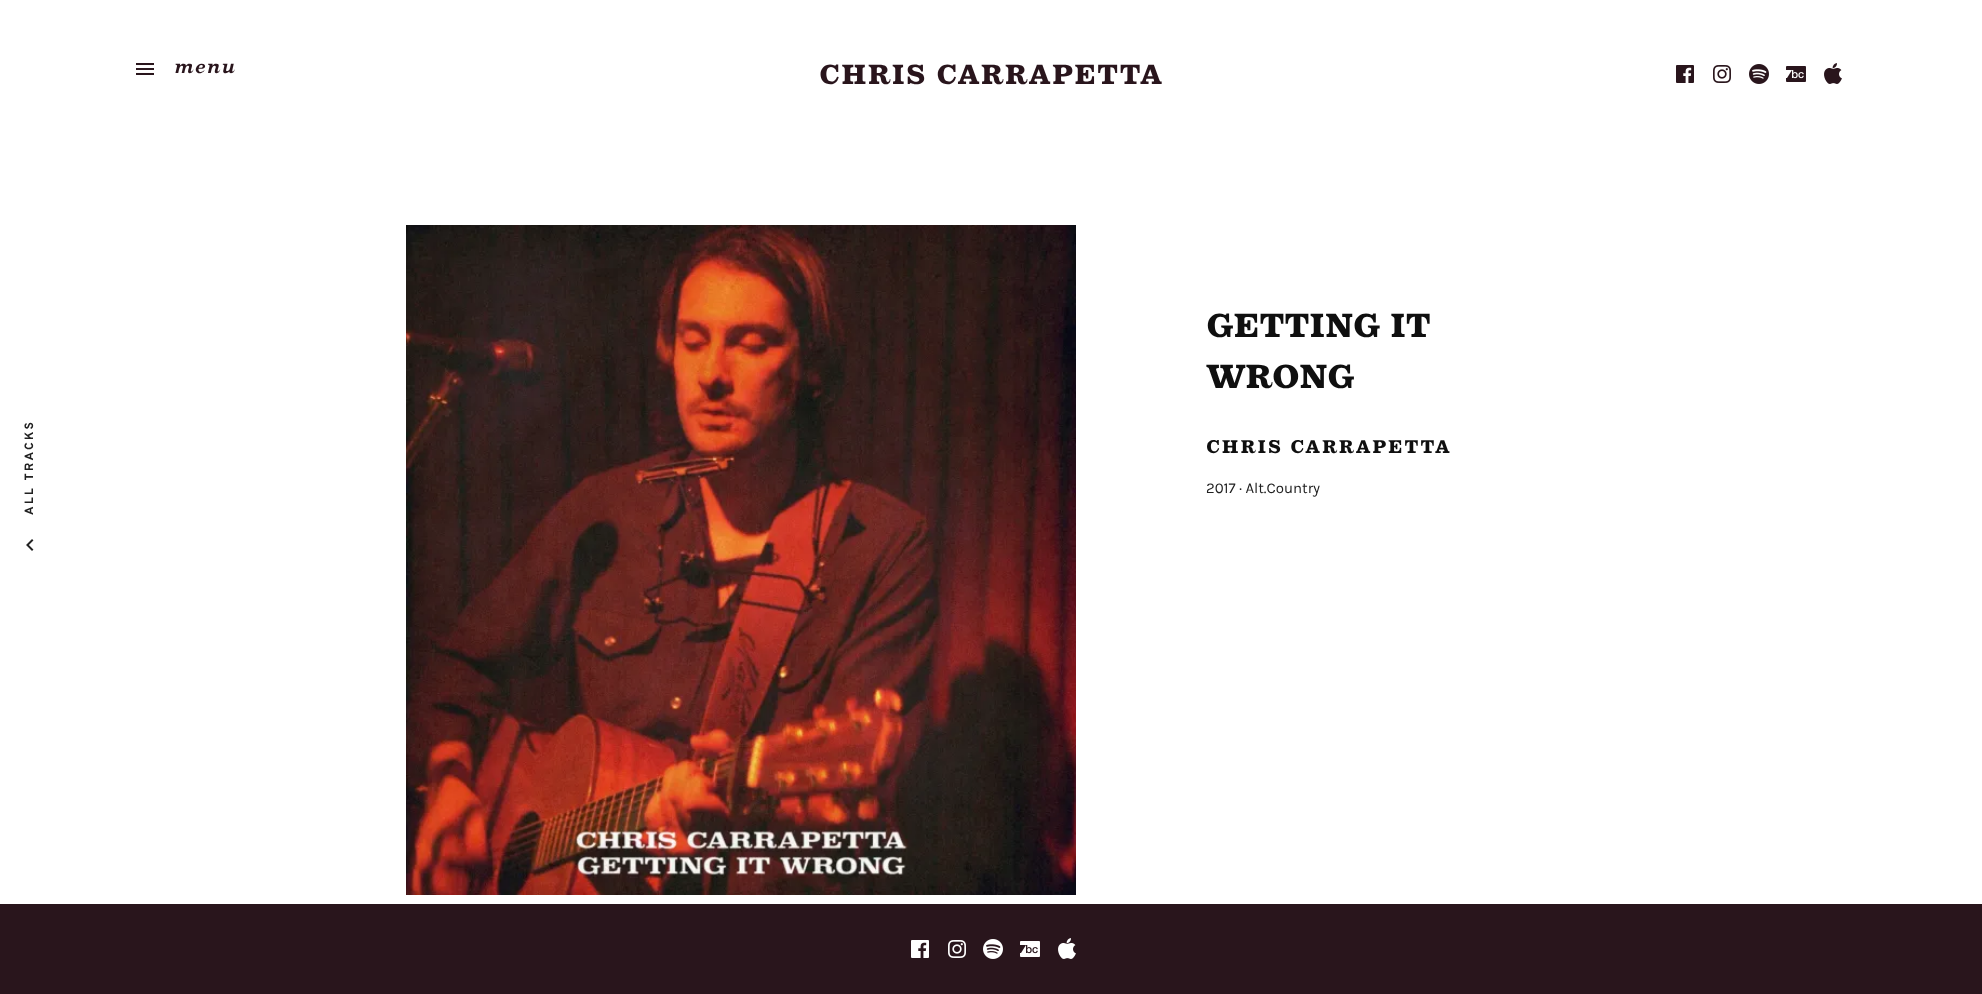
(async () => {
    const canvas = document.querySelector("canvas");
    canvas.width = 1982;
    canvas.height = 994;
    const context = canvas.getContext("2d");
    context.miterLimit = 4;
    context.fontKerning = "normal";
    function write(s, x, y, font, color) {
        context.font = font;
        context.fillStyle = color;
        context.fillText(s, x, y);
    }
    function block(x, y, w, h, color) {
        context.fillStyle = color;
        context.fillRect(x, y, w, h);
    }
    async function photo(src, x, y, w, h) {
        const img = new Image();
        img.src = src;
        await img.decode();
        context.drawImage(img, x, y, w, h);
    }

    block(0, 0, 1982, 994, "rgb(255, 255, 255)");
    await photo("media/1.png", 136, 63, 18, 12);
    context.letterSpacing = "1.5px";
    write("menu", 174, 73, "italic bold 22.5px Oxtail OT", "rgb(41, 21, 28)");
    write("CHRIS CARRAPETTA", 819, 84, "900 30px Oxtail OT", "rgb(41, 21, 28)");
    await photo("media/2.png", 1676, 65, 18, 18);
    await photo("media/3.png", 1713, 65, 18, 18);
    await photo("media/4.png", 1749, 64, 20, 20);
    await photo("media/5.png", 1786, 66, 20, 16);
    await photo("media/6.png", 1824, 63, 18, 21);
    context.letterSpacing = "2.4px";
    context.font = "bold 12px Overpass";
    context.fillStyle = "rgb(33, 33, 33)";
    context.save();
    context.translate(33, 515);
    context.rotate(-90 * Math.PI / 180);
    context.fillText("ALL TRACKS", 0, 0);
    context.restore();
    await photo("media/7.png", 26, 539, 8, 12);
    await photo("media/8.png", 406, 225, 670, 670);
    context.letterSpacing = "0px";
    write("GETTING IT", 1206, 337, "900 36px Oxtail OT", "rgb(15, 15, 15)");
    write("WRONG", 1206, 388, "900 36px Oxtail OT", "rgb(15, 15, 15)");
    context.letterSpacing = "2px";
    write("CHRIS CARRAPETTA", 1206, 453, "900 20px Oxtail OT", "rgb(15, 15, 15)");
    context.letterSpacing = "0px";
    write("2017 · Alt.Country", 1206, 493, "15px Karla", "rgb(33, 33, 33)");
    block(0, 904, 1982, 90, "rgb(41, 21, 28)");
    await photo("media/9.png", 911, 940, 18, 18);
    await photo("media/10.png", 948, 940, 18, 18);
    await photo("media/11.png", 983, 939, 20, 20);
    await photo("media/12.png", 1020, 941, 20, 16);
    await photo("media/13.png", 1058, 938, 18, 21);
})();
